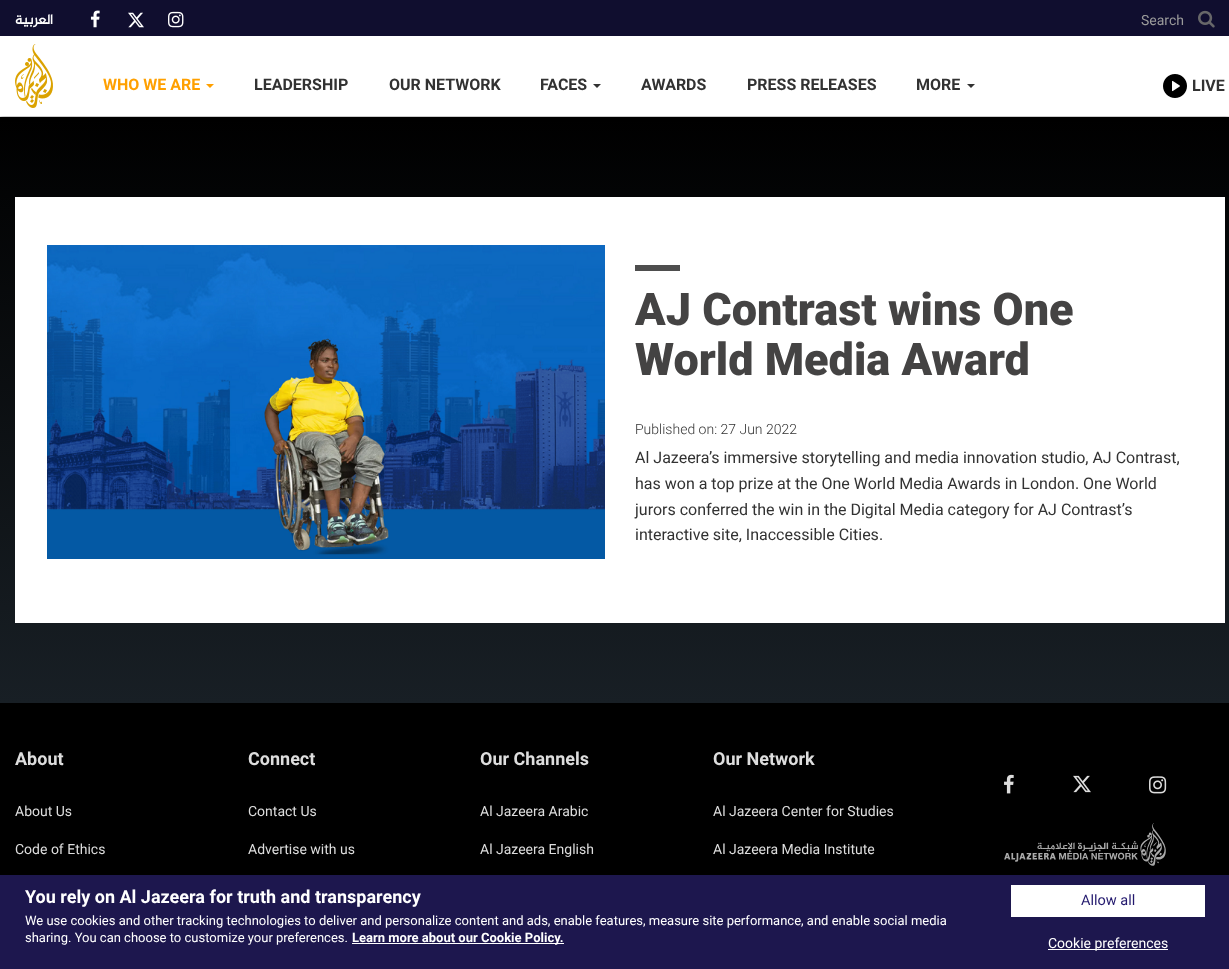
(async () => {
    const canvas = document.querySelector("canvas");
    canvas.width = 1229;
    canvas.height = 969;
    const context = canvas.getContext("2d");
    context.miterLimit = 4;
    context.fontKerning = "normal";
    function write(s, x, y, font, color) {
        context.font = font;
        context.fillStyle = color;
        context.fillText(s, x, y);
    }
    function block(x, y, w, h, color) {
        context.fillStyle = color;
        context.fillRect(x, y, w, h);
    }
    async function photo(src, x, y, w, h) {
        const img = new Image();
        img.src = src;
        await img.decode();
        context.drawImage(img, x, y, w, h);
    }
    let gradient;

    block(0, 0, 1229, 969, "rgb(255, 255, 255)");
    gradient = context.createLinearGradient(615, 117, 615, 703);
    gradient.addColorStop(0, "rgb(0, 0, 0)");
    gradient.addColorStop(1, "rgb(24, 31, 37)");
    context.fillStyle = gradient;
    context.fillRect(0, 117, 1229, 586);
    context.save();
    context.beginPath();
    context.rect(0, 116, 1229, 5);
    context.clip();
    context.fillStyle = "rgba(0, 0, 0, 0.27)";
    context.filter = "blur(2px)";
    context.beginPath();
    context.rect(0, 2, 1229, 116);
    context.fill();
    context.filter = "none";
    context.restore();
    block(0, 0, 1229, 36, "rgb(16, 14, 47)");
    context.direction = "rtl";
    write("العربية", 53, 24, "bold 14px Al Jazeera", "rgb(255, 255, 255)");
    await photo("media/1.png", 90, 10, 10, 18);
    await photo("media/2.png", 128, 12, 16, 16);
    await photo("media/3.png", 168, 11, 16, 17);
    context.direction = "ltr";
    write("Search", 1141, 25, "14px Roboto", "rgb(154, 154, 154)");
    await photo("media/4.png", 1198, 10, 17, 18);
    await photo("media/5.png", 15, 44, 38, 64);
    write("WHO WE ARE", 103, 90, "bold 16px Roboto", "rgb(255, 160, 0)");
    context.beginPath();
    context.moveTo(206, 84);
    context.lineTo(214, 84);
    context.lineTo(210, 88);
    context.closePath();
    context.fill();
    write("LEADERSHIP", 254, 90, "bold 16px Roboto", "rgb(50, 50, 50)");
    write("OUR NETWORK", 389, 90, "bold 16px Roboto", "rgb(50, 50, 50)");
    write("FACES", 540, 90, "bold 16px Roboto", "rgb(50, 50, 50)");
    context.beginPath();
    context.moveTo(593, 84);
    context.lineTo(601, 84);
    context.lineTo(597, 88);
    context.closePath();
    context.fill();
    write("AWARDS", 641, 90, "bold 16px Roboto", "rgb(50, 50, 50)");
    write("PRESS RELEASES", 747, 90, "bold 16px Roboto", "rgb(50, 50, 50)");
    write("MORE", 916, 90, "bold 16px Roboto", "rgb(50, 50, 50)");
    context.beginPath();
    context.moveTo(967, 84);
    context.lineTo(975, 84);
    context.lineTo(971, 88);
    context.closePath();
    context.fill();
    await photo("media/6.png", 1163, 74, 24, 24);
    write("LIVE", 1192, 91, "bold 16px Roboto", "rgb(50, 50, 50)");
    block(15, 197, 1210, 426, "rgb(255, 255, 255)");
    await photo("media/7.png", 47, 245, 558, 314);
    block(635, 265, 45, 6, "rgb(78, 78, 78)");
    write("AJ Contrast wins One", 635, 325, "900 45px Roboto", "rgb(68, 67, 67)");
    write("World Media Award", 635, 375, "900 45px Roboto", "rgb(68, 67, 67)");
    write("Published on: 27 Jun 2022", 635, 434, "300 14px Roboto", "rgb(50, 50, 50)");
    write("Al Jazeera’s immersive storytelling and media innovation studio, AJ Contrast,", 635, 463, "16px Roboto", "rgb(50, 50, 50)");
    write("has won a top prize at the One World Media Awards in London. One World", 635, 489, "16px Roboto", "rgb(50, 50, 50)");
    write("jurors conferred the win in the Digital Media category for AJ Contrast’s", 635, 515, "16px Roboto", "rgb(50, 50, 50)");
    write("interactive site, Inaccessible Cities.", 635, 540, "16px Roboto", "rgb(50, 50, 50)");
    block(0, 703, 1229, 172, "rgb(0, 0, 0)");
    write("About", 15, 765, "bold 18px Roboto", "rgb(221, 221, 221)");
    write("About Us", 15, 816, "14px Roboto", "rgb(221, 221, 221)");
    write("Code of Ethics", 15, 854, "14px Roboto", "rgb(221, 221, 221)");
    write("Connect", 248, 765, "bold 18px Roboto", "rgb(221, 221, 221)");
    write("Contact Us", 248, 816, "14px Roboto", "rgb(221, 221, 221)");
    write("Advertise with us", 248, 854, "14px Roboto", "rgb(221, 221, 221)");
    write("Our Channels", 480, 765, "bold 18px Roboto", "rgb(221, 221, 221)");
    write("Al Jazeera Arabic", 480, 816, "14px Roboto", "rgb(221, 221, 221)");
    write("Al Jazeera English", 480, 854, "14px Roboto", "rgb(221, 221, 221)");
    write("Our Network", 713, 765, "bold 18px Roboto", "rgb(221, 221, 221)");
    write("Al Jazeera Center for Studies", 713, 816, "14px Roboto", "rgb(221, 221, 221)");
    write("Al Jazeera Media Institute", 713, 854, "14px Roboto", "rgb(221, 221, 221)");
    await photo("media/8.png", 1004, 774, 10, 20);
    await photo("media/9.png", 1073, 775, 18, 18);
    await photo("media/10.png", 1149, 776, 18, 18);
    await photo("media/11.png", 1004, 823, 162, 43);
    context.fillStyle = "rgba(0, 0, 0, 0.2)";
    context.filter = "blur(9px)";
    context.beginPath();
    context.rect(0, 875, 1229, 94);
    context.fill();
    context.filter = "none";
    block(0, 875, 1229, 94, "rgb(29, 23, 78)");
    write("You rely on Al Jazeera for truth and transparency", 25, 903, "bold 18px Roboto", "rgb(255, 255, 255)");
    write("We use cookies and other tracking technologies to deliver and personalize content and ads, enable features, measure site performance, and enable social media", 25, 925, "13px Roboto", "rgb(255, 255, 255)");
    write("sharing. You can choose to customize your preferences.", 25, 942, "13px Roboto", "rgb(255, 255, 255)");
    block(352, 943, 212, 1, "rgb(255, 255, 255)");
    write("Learn more about our Cookie Policy.", 352, 942, "bold 13px Roboto", "rgb(255, 255, 255)");
    block(1011, 885, 194, 32, "rgb(255, 255, 255)");
    write("Allow all", 1081, 905, "14.5px Roboto", "rgb(35, 25, 110)");
    block(1048, 949, 120, 1, "rgb(255, 255, 255)");
    write("Cookie preferences", 1048, 948, "14px Roboto", "rgb(255, 255, 255)");
})();
